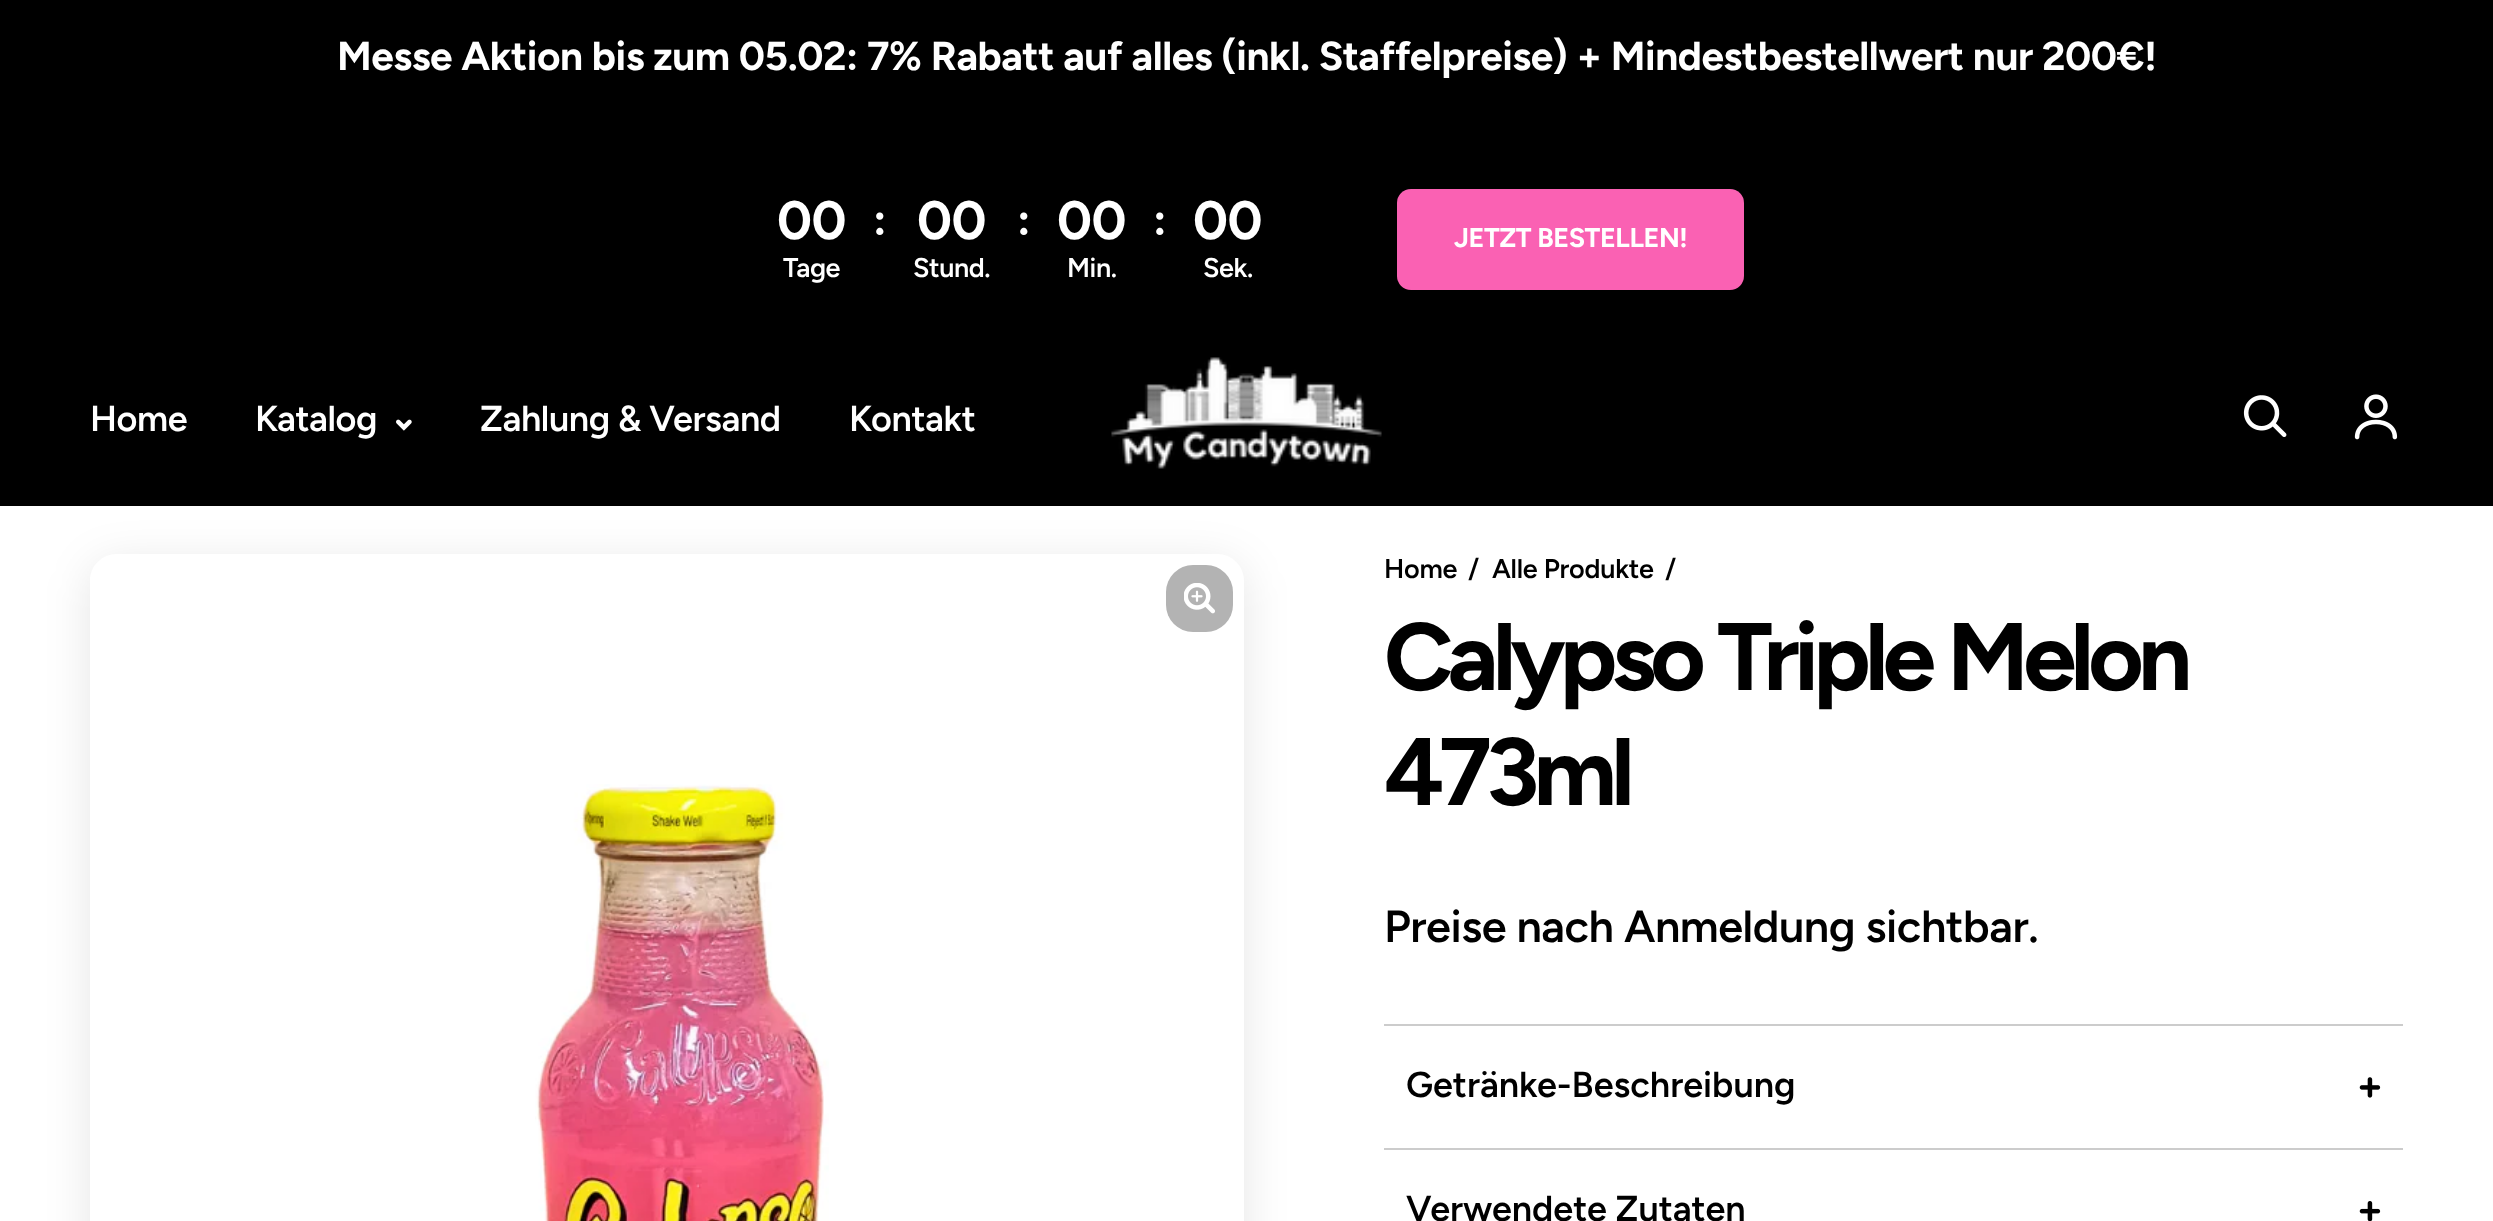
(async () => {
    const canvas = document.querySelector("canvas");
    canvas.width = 2493;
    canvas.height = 1221;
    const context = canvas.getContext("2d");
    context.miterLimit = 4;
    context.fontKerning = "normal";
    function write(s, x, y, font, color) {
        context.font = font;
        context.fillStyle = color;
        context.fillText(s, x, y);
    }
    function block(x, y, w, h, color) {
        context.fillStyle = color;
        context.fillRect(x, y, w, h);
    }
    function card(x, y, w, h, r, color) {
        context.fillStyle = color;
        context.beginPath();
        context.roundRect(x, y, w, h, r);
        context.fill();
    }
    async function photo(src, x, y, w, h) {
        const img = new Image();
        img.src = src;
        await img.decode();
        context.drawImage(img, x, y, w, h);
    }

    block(0, 0, 2493, 1221, "rgb(255, 255, 255)");
    context.save();
    context.beginPath();
    context.moveTo(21, 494);
    context.lineTo(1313, 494);
    context.lineTo(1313, 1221);
    context.lineTo(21, 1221);
    context.closePath();
    context.moveTo(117, 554);
    context.lineTo(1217, 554);
    context.bezierCurveTo(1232, 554, 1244, 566, 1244, 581);
    context.lineTo(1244, 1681);
    context.bezierCurveTo(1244, 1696, 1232, 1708, 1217, 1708);
    context.lineTo(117, 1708);
    context.bezierCurveTo(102, 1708, 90, 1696, 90, 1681);
    context.lineTo(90, 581);
    context.bezierCurveTo(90, 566, 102, 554, 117, 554);
    context.closePath();
    context.clip("evenodd");
    context.fillStyle = "rgba(0, 0, 0, 0.1)";
    context.filter = "blur(22.5px)";
    context.beginPath();
    context.roundRect(90, 563, 1154, 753, 27);
    context.fill();
    context.filter = "none";
    context.restore();
    block(0, 0, 2493, 506, "rgb(0, 0, 0)");
    context.letterSpacing = "-0.45px";
    write("Messe Aktion bis zum 05.02: 7% Rabatt auf alles (inkl. Staffelpreise) + Mindestbestellwert nur 200€!", 337, 70, "bold 40.5px Figtree", "rgb(255, 255, 255)");
    write("00", 777, 239, "bold 54px Figtree", "rgb(255, 255, 255)");
    write("Tage", 783, 277, "600 27px Figtree", "rgb(255, 255, 255)");
    write(":", 873, 235, "bold 45px Figtree", "rgb(255, 255, 255)");
    write("00", 917, 239, "bold 54px Figtree", "rgb(255, 255, 255)");
    write("Stund.", 913, 277, "600 27px Figtree", "rgb(255, 255, 255)");
    write(":", 1017, 235, "bold 45px Figtree", "rgb(255, 255, 255)");
    write("00", 1057, 239, "bold 54px Figtree", "rgb(255, 255, 255)");
    write("Min.", 1067, 277, "600 27px Figtree", "rgb(255, 255, 255)");
    write(":", 1153, 235, "bold 45px Figtree", "rgb(255, 255, 255)");
    write("00", 1193, 239, "bold 54px Figtree", "rgb(255, 255, 255)");
    write("Sek.", 1203, 277, "600 27px Figtree", "rgb(255, 255, 255)");
    card(1397, 189, 347, 101, 14, "rgb(250, 97, 179)");
    write("JETZT BESTELLEN!", 1454, 247, "bold 27px Figtree", "rgb(255, 255, 255)");
    context.letterSpacing = "-0.4px";
    write("Home", 90, 431, "600 36px Figtree", "rgb(255, 255, 255)");
    write("Katalog", 255, 431, "600 36px Figtree", "rgb(255, 255, 255)");
    await photo("media/1.png", 396, 419, 16, 12);
    write("Zahlung & Versand", 480, 431, "600 36px Figtree", "rgb(255, 255, 255)");
    write("Kontakt", 849, 431, "600 36px Figtree", "rgb(255, 255, 255)");
    await photo("media/2.png", 1111, 357, 271, 112);
    await photo("media/3.png", 2243, 395, 44, 42);
    await photo("media/4.png", 2354, 394, 44, 46);
    await photo("media/5.png", 535, 784, 294, 437);
    card(1166, 565, 67, 67, 27, "rgb(179, 179, 179)");
    await photo("media/6.png", 1184, 583, 31, 31);
    context.letterSpacing = "-0.25px";
    write("Home", 1384, 578, "600 27px Figtree", "rgb(0, 0, 0)");
    write("/", 1468, 578, "600 27px Figtree", "rgb(0, 0, 0)");
    write("Alle Produkte", 1492, 578, "600 27px Figtree", "rgb(0, 0, 0)");
    write("/", 1665, 578, "600 27px Figtree", "rgb(0, 0, 0)");
    context.letterSpacing = "-5.75px";
    write("Calypso Triple Melon", 1384, 690, "bold 95.6px Figtree", "rgb(0, 0, 0)");
    write("473ml", 1384, 805, "bold 95.6px Figtree", "rgb(0, 0, 0)");
    context.letterSpacing = "-0.45px";
    write("Preise nach Anmeldung sichtbar.", 1384, 942, "600 45px Figtree", "rgb(0, 0, 0)");
    block(1384, 1024, 1019, 2, "rgb(204, 204, 204)");
    block(1384, 1148, 1019, 2, "rgb(204, 204, 204)");
    context.letterSpacing = "0px";
    write("Getränke-Beschreibung", 1406, 1097, "600 36px Figtree", "rgb(0, 0, 0)");
    await photo("media/7.png", 2359, 1077, 22, 21);
    write("Verwendete Zutaten", 1406, 1221, "600 36px Figtree", "rgb(0, 0, 0)");
    await photo("media/8.png", 2359, 1201, 22, 20);
})();
